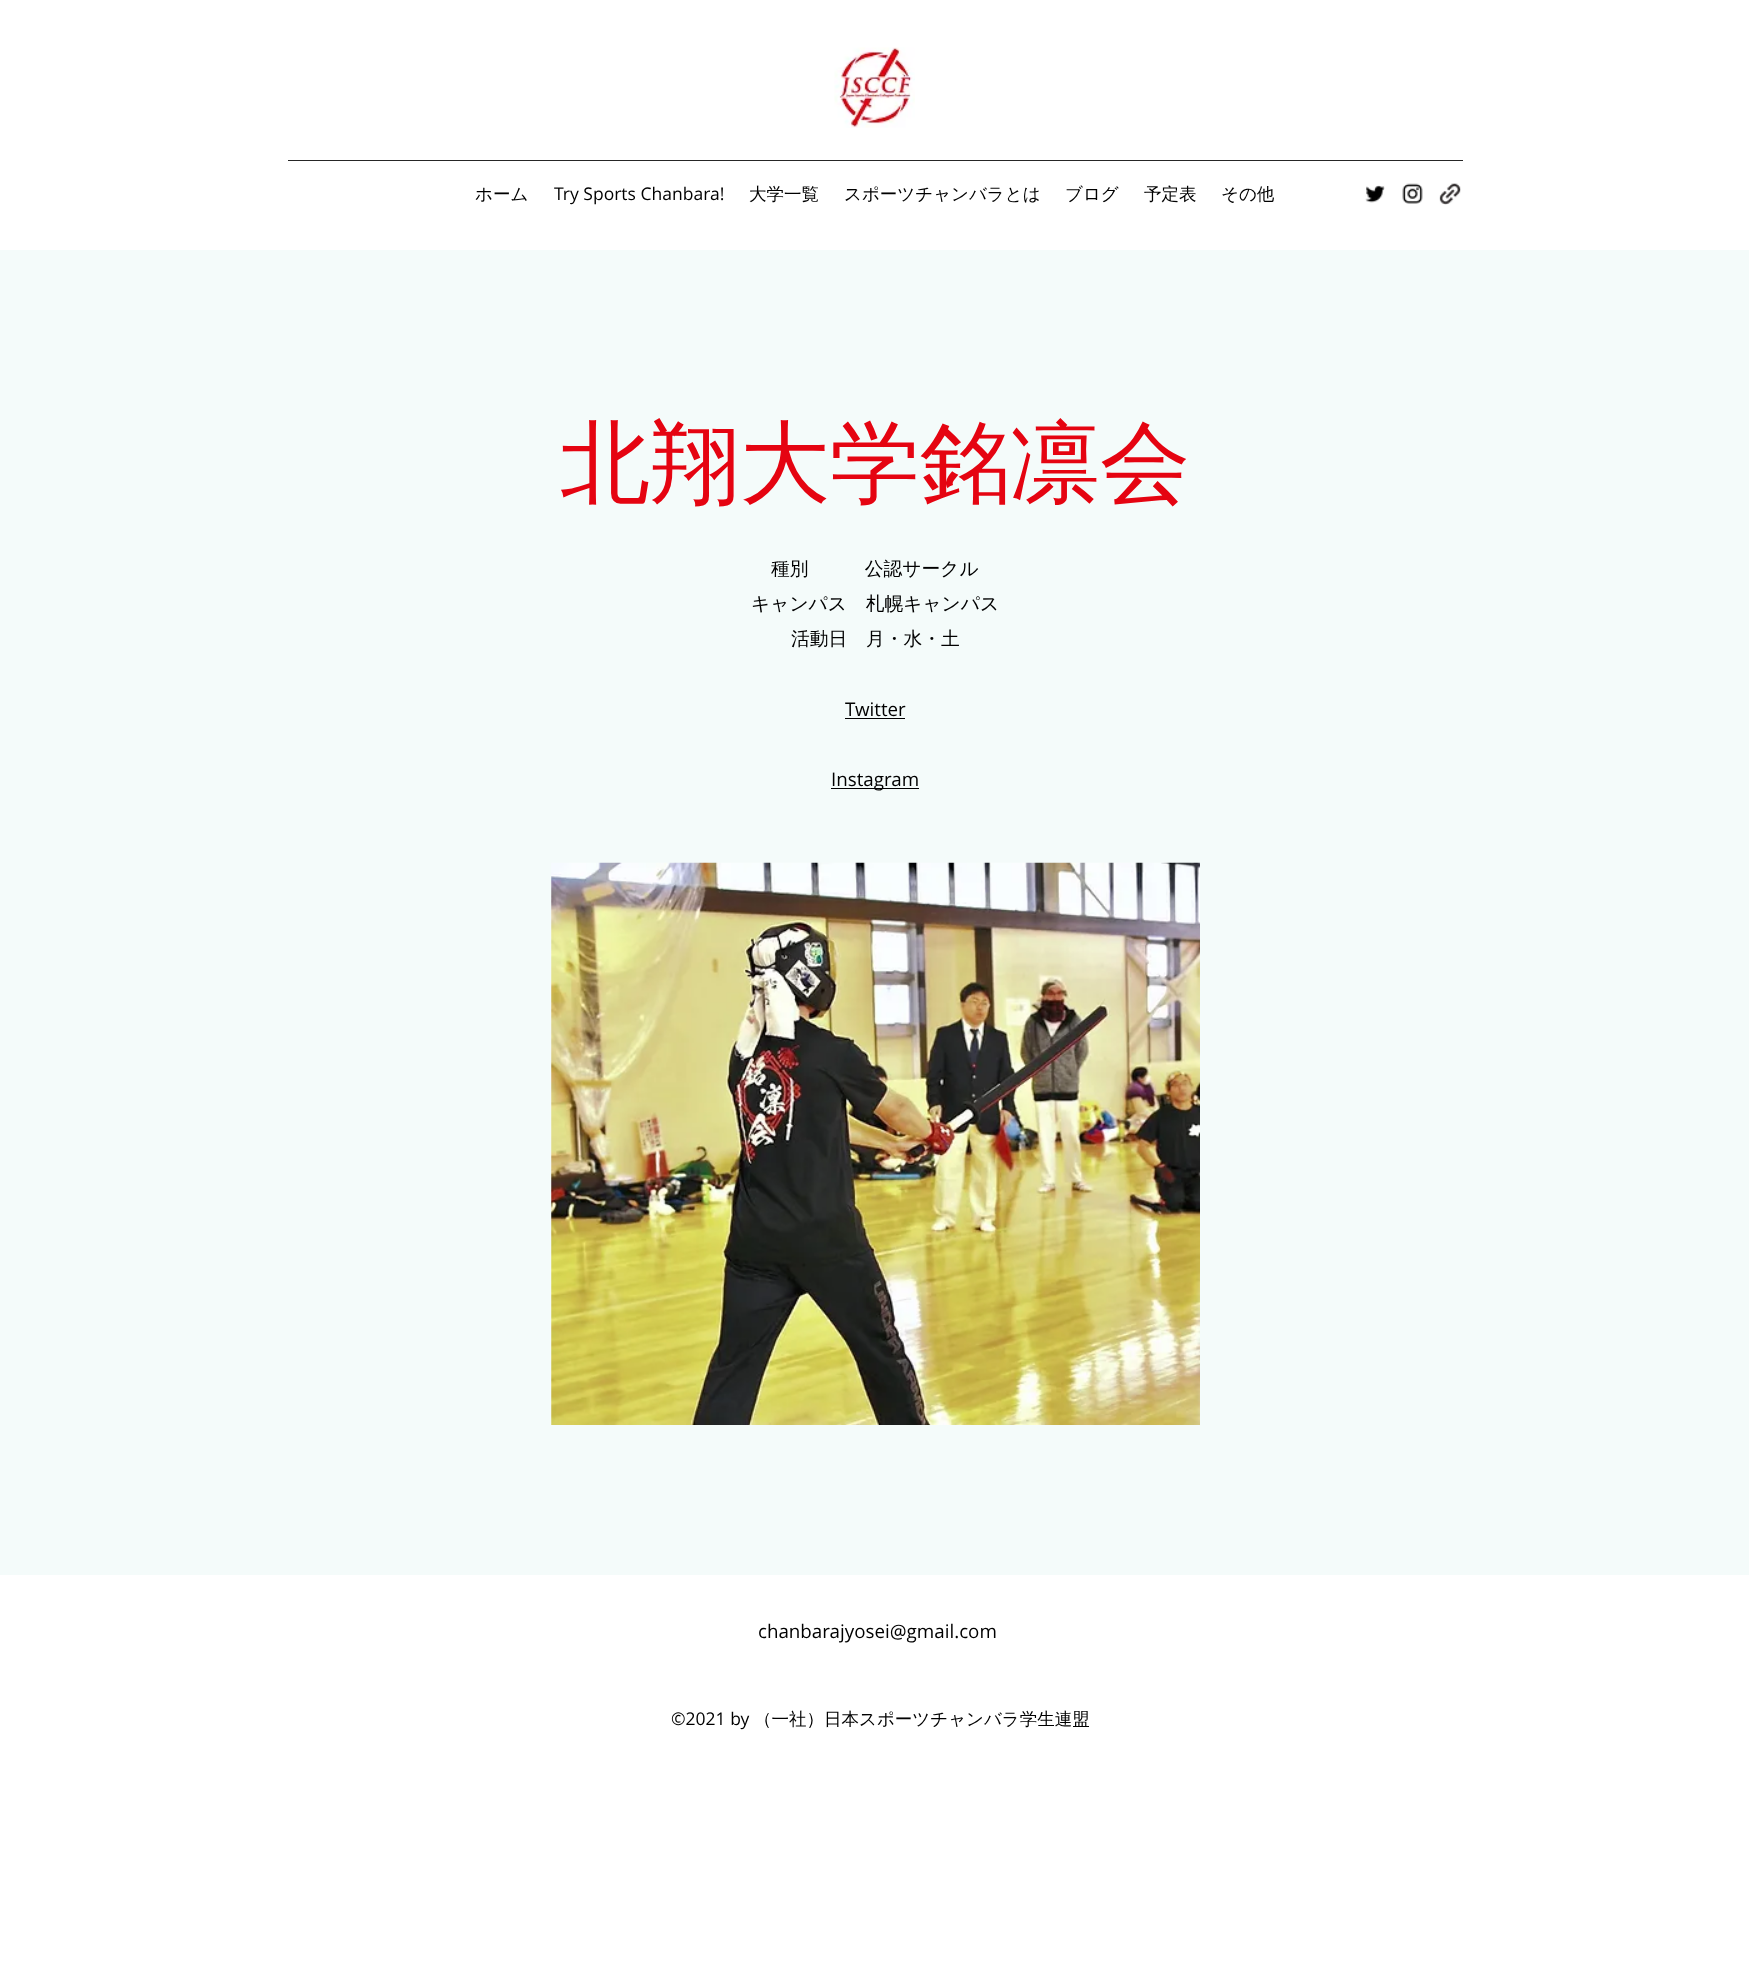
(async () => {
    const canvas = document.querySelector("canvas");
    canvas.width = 1749;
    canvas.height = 1975;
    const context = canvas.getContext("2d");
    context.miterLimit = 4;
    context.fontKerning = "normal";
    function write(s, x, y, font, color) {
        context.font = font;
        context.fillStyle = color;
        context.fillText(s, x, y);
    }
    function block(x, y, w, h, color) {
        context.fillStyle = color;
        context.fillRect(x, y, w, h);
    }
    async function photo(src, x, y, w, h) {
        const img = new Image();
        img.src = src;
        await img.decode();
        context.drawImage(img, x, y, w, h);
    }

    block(0, 0, 1749, 1975, "rgb(255, 255, 255)");
    await photo("media/1.png", 834, 47, 81, 81);
    block(288, 160, 1175, 1, "rgb(38, 38, 38)");
    write("ホーム", 475, 200, "500 17.5px WenQuanYi Zen Hei", "rgb(0, 0, 0)");
    write("Try Sports Chanbara!", 554, 200, "17.5px Open Sans", "rgb(0, 0, 0)");
    write("大学一覧", 749, 200, "500 17.5px WenQuanYi Zen Hei", "rgb(0, 0, 0)");
    write("スポーツチャンバラとは", 844, 200, "500 17.5px WenQuanYi Zen Hei", "rgb(0, 0, 0)");
    write("ブログ", 1065, 200, "500 17.5px WenQuanYi Zen Hei", "rgb(0, 0, 0)");
    write("予定表", 1144, 200, "500 17.5px WenQuanYi Zen Hei", "rgb(0, 0, 0)");
    write("その他", 1221, 200, "500 17.5px WenQuanYi Zen Hei", "rgb(0, 0, 0)");
    await photo("media/2.png", 1365, 185, 20, 18);
    await photo("media/3.png", 1402, 183, 21, 21);
    await photo("media/4.png", 1439, 183, 22, 22);
    block(0, 250, 1749, 1325, "rgb(244, 251, 250)");
    write("北翔大学銘凛会", 560, 494, "500 90px WenQuanYi Zen Hei", "rgb(229, 4, 17)");
    write("種別　　　公認サークル", 771, 575, "500 18.75px WenQuanYi Zen Hei", "rgb(0, 0, 0)");
    write("キャンパス　札幌キャンパス", 751, 610, "500 18.75px WenQuanYi Zen Hei", "rgb(0, 0, 0)");
    write("活動日　月・水・土", 791, 645, "500 18.75px WenQuanYi Zen Hei", "rgb(0, 0, 0)");
    write("Twitter", 845, 716, "18.75px Open Sans", "rgb(0, 0, 0)");
    block(845, 718, 60, 1, "rgb(0, 0, 0)");
    block(831, 788, 88, 1, "rgb(0, 0, 0)");
    write("Instagram", 831, 786, "18.75px Open Sans", "rgb(0, 0, 0)");
    await photo("media/5.png", 551, 862, 649, 563);
    write("chanbarajyosei@gmail.com", 758, 1638, "18.75px Open Sans", "rgb(0, 0, 0)");
    write("©2021 by", 671, 1725, "17.5px Open Sans", "rgb(0, 0, 0)");
    write("（一社）日本スポーツチャンバラ学生連盟", 754, 1725, "500 17.5px WenQuanYi Zen Hei", "rgb(0, 0, 0)");
})();
